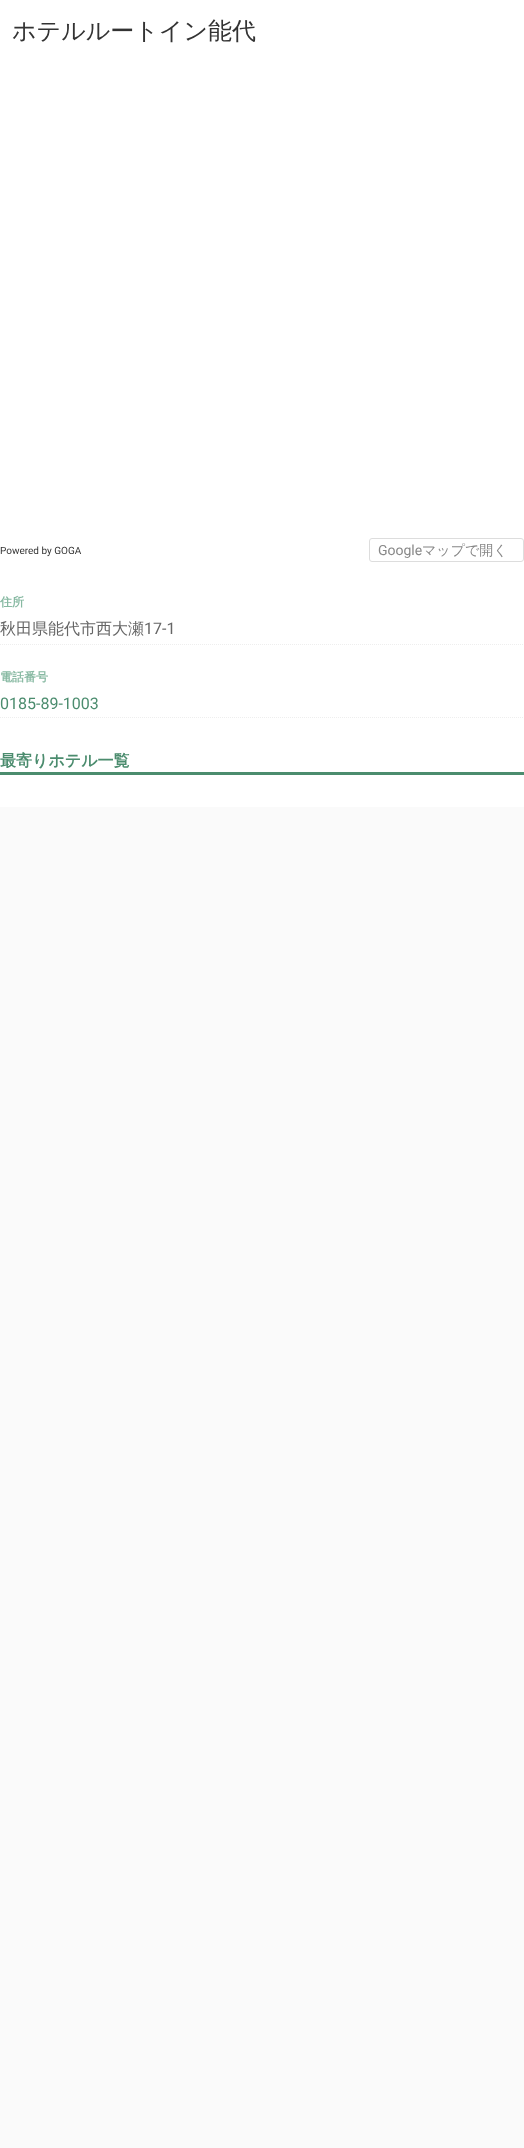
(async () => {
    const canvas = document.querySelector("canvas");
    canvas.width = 524;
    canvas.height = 2148;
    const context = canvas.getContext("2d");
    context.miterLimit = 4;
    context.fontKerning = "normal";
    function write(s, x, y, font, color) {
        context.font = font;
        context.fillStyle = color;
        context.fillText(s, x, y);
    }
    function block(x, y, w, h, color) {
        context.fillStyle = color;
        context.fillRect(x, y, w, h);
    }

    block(0, 0, 524, 2148, "rgb(250, 250, 250)");
    block(0, 0, 524, 807, "rgb(255, 255, 255)");
    write("ホテルルートイン能代", 12, 39, "500 24px WenQuanYi Zen Hei", "rgb(51, 51, 51)");
    write("Powered by GOGA", 0, 554, "10px Roboto", "rgb(51, 51, 51)");
    context.beginPath();
    context.roundRect(369.5, 538.5, 154, 23, 2.5);
    context.strokeStyle = "rgb(221, 221, 221)";
    context.stroke();
    write("Google", 378, 555, "14px Roboto", "rgb(136, 136, 136)");
    write("マップで開く", 422, 555, "500 14px WenQuanYi Zen Hei", "rgb(136, 136, 136)");
    context.beginPath();
    context.moveTo(0, 644.5);
    context.lineTo(524, 644.5);
    context.strokeStyle = "rgb(238, 238, 238)";
    context.setLineDash([1, 1]);
    context.stroke();
    write("住所", 0, 606, "bold 12px WenQuanYi Zen Hei", "rgb(135, 185, 162)");
    write("秋田県能代市西大瀬", 0, 634, "500 16px WenQuanYi Zen Hei", "rgb(102, 102, 102)");
    write("17-1", 144, 634, "16px Roboto", "rgb(102, 102, 102)");
    context.beginPath();
    context.moveTo(0, 717.5);
    context.lineTo(524, 717.5);
    context.stroke();
    write("電話番号", 0, 681, "bold 12px WenQuanYi Zen Hei", "rgb(135, 185, 162)");
    write("0185-89-1003", 0, 709, "16px Roboto", "rgb(75, 140, 110)");
    block(0, 772, 524, 3, "rgb(75, 140, 110)");
    write("最寄りホテル一覧", 0, 766, "bold 16px WenQuanYi Zen Hei", "rgb(75, 140, 110)");
})();
